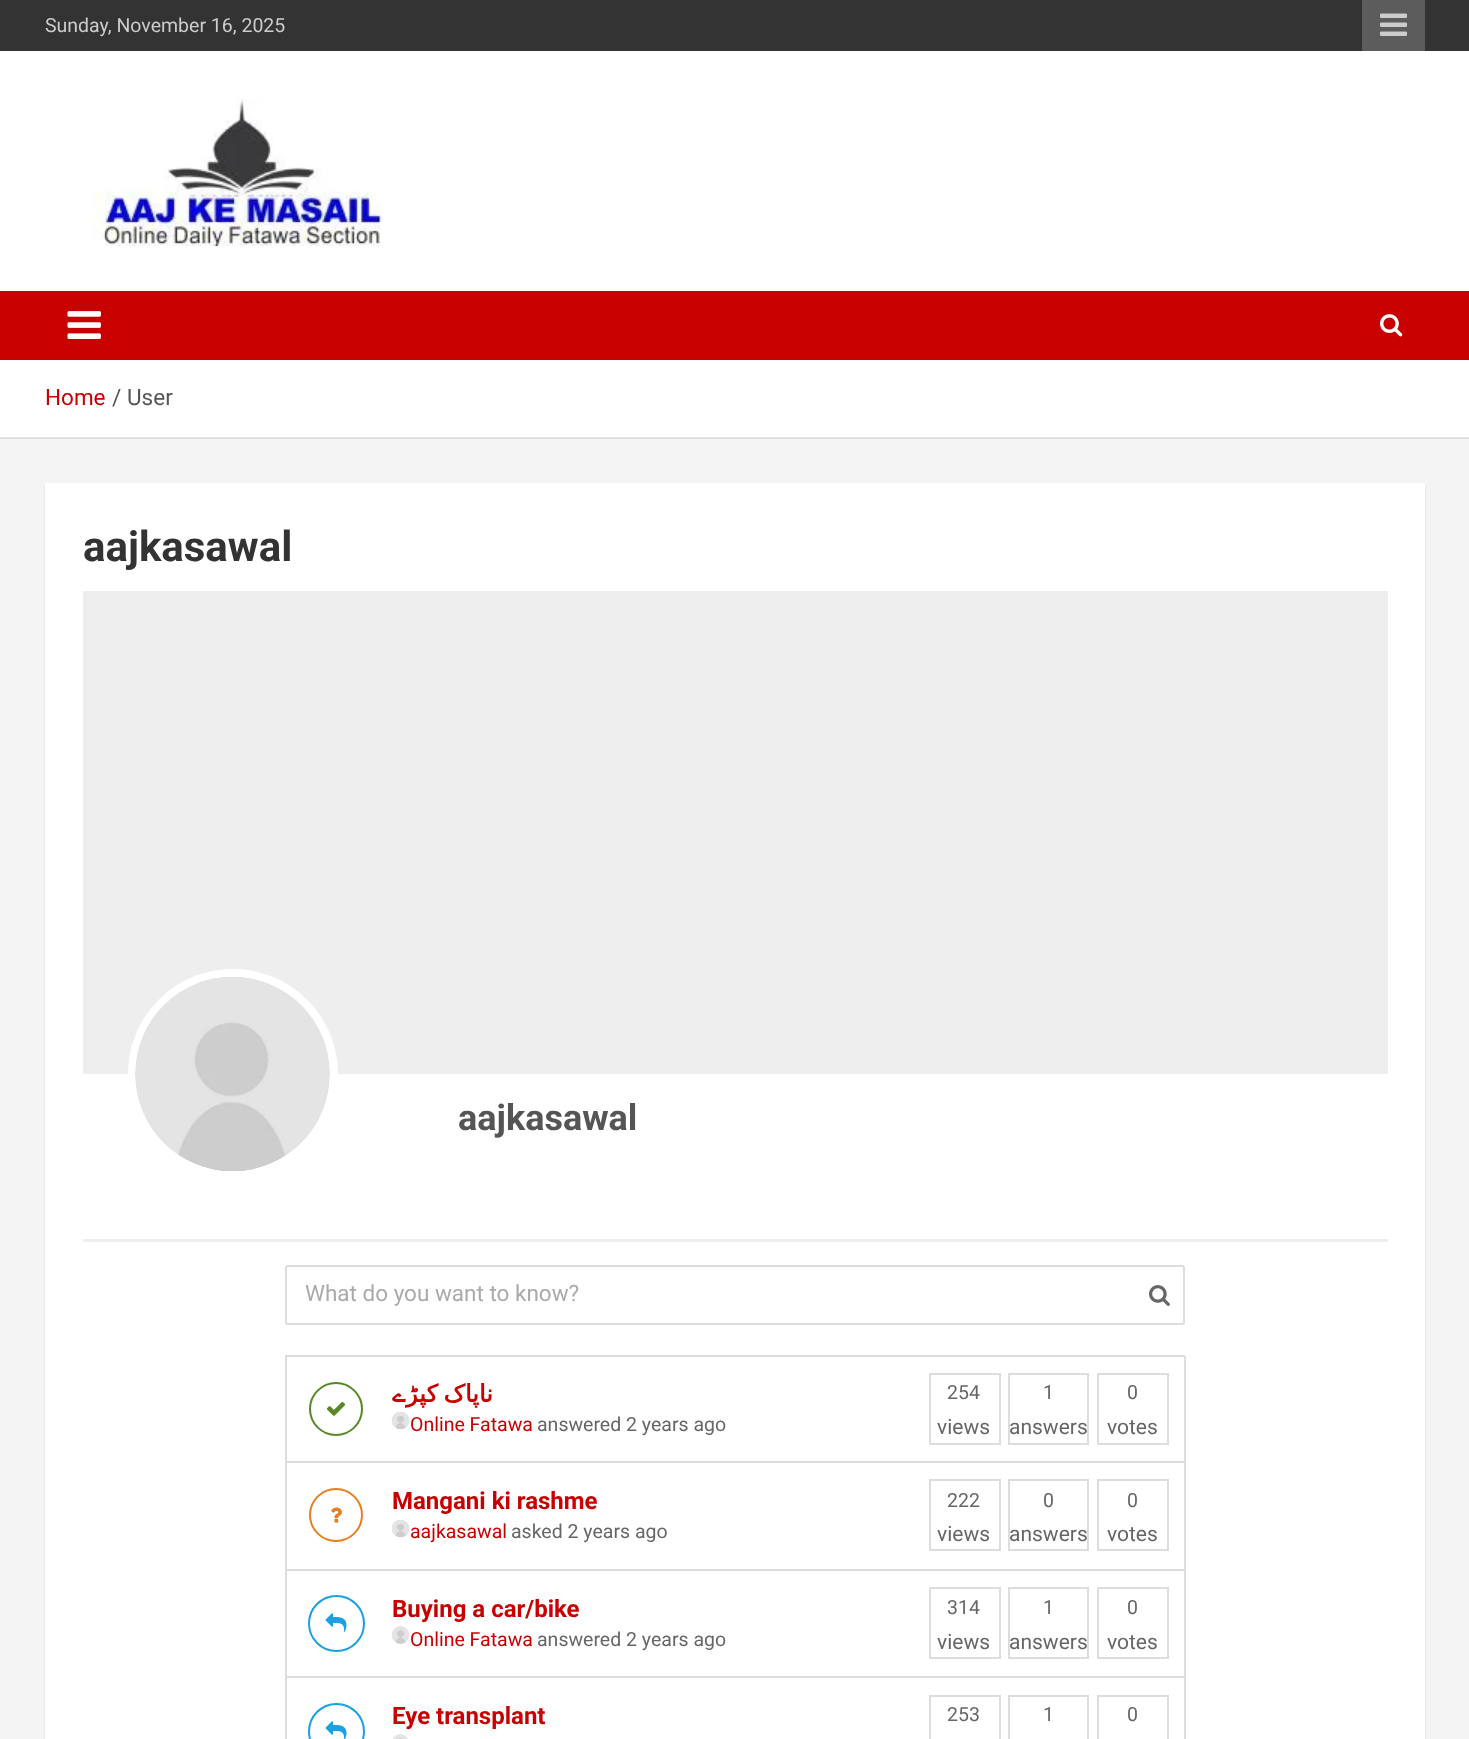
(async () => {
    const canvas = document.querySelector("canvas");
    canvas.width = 1469;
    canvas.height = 1739;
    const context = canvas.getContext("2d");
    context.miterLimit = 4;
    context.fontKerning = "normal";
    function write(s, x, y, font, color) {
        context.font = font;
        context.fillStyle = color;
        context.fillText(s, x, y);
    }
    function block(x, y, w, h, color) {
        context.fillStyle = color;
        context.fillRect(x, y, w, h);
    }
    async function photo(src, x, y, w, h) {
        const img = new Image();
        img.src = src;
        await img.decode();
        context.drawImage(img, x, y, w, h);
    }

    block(0, 0, 1469, 1739, "rgb(244, 244, 244)");
    block(0, 438, 1469, 1, "rgb(220, 220, 220)");
    block(0, 0, 1469, 51, "rgb(51, 51, 51)");
    write("Sunday, November 16, 2025", 45, 32, "19.5px Roboto", "rgb(204, 204, 204)");
    block(1362, 0, 63, 51, "rgb(92, 92, 92)");
    await photo("media/1.png", 1380, 13, 27, 23);
    block(0, 51, 1469, 240, "rgb(255, 255, 255)");
    await photo("media/2.png", 92, 98, 290, 148);
    block(0, 291, 1469, 69, "rgb(200, 0, 0)");
    await photo("media/3.png", 67, 311, 34, 28);
    await photo("media/4.png", 1380, 314, 23, 23);
    block(0, 360, 1469, 77, "rgb(255, 255, 255)");
    block(0, 437, 1469, 1, "rgb(230, 230, 230)");
    write("Home", 45, 405, "22.5px Roboto", "rgb(200, 0, 0)");
    write("/", 112, 405, "22.5px Roboto", "rgb(85, 85, 85)");
    write("User", 127, 405, "22.5px Roboto", "rgb(85, 85, 85)");
    context.fillStyle = "rgba(0, 0, 0, 0.1)";
    context.filter = "blur(1px)";
    context.beginPath();
    context.rect(45, 485, 1380, 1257);
    context.fill();
    context.filter = "none";
    block(45, 483, 1380, 1256, "rgb(255, 255, 255)");
    write("aajkasawal", 83, 561, "bold 42px Roboto", "rgb(51, 51, 51)");
    block(83, 591, 1305, 483, "rgb(238, 238, 238)");
    block(83, 1239, 1305, 3, "rgb(238, 238, 238)");
    context.fillStyle = "rgb(255, 255, 255)";
    context.beginPath();
    context.arc(233, 1074, 101, 0, Math.PI * 2);
    context.fill();
    context.strokeStyle = "rgb(255, 255, 255)";
    context.lineWidth = 8;
    context.stroke();
    await photo("media/5.png", 135, 977, 195, 195);
    write("aajkasawal", 458, 1130, "bold 36px Roboto", "rgb(85, 85, 85)");
    context.beginPath();
    context.roundRect(286, 1266, 898, 58, 2);
    context.strokeStyle = "rgb(221, 221, 221)";
    context.lineWidth = 2;
    context.stroke();
    write("What do you want to know?", 305, 1301, "22.5px Roboto", "rgb(170, 170, 170)");
    await photo("media/6.png", 1149, 1285, 21, 21);
    block(285, 1355, 900, 2, "rgb(221, 221, 221)");
    block(1184, 1356, 2, 321, "rgb(221, 221, 221)");
    block(285, 1461, 900, 2, "rgb(221, 221, 221)");
    block(285, 1356, 2, 107, "rgb(221, 221, 221)");
    context.direction = "rtl";
    write("ے", 406, 1402, "600 24px Cascadia Code", "rgb(200, 0, 0)");
    context.wordSpacing = "-2px";
    write("ناپاک کپڑ", 493, 1402, "bold 24px DejaVu Sans", "rgb(200, 0, 0)");
    context.strokeRect(930, 1374, 70, 70);
    context.wordSpacing = "0px";
    context.direction = "ltr";
    write("254", 947, 1399, "19.5px Roboto", "rgb(102, 102, 102)");
    write("views", 937, 1434, "21px Roboto", "rgb(102, 102, 102)");
    context.strokeRect(1009, 1374, 79, 70);
    write("1", 1043, 1399, "19.5px Roboto", "rgb(102, 102, 102)");
    write("answers", 1009, 1434, "21px Roboto", "rgb(102, 102, 102)");
    context.strokeRect(1098, 1374, 70, 70);
    write("0", 1127, 1399, "19.5px Roboto", "rgb(102, 102, 102)");
    write("votes", 1107, 1434, "21px Roboto", "rgb(102, 102, 102)");
    context.beginPath();
    context.arc(336, 1409, 26, 0, Math.PI * 2);
    context.strokeStyle = "rgb(87, 136, 36)";
    context.stroke();
    await photo("media/7.png", 326, 1401, 20, 15);
    await photo("media/8.png", 391, 1411, 19, 19);
    write("Online Fatawa", 410, 1431, "19.5px Roboto", "rgb(200, 0, 0)");
    write("answered 2 years ago", 537, 1431, "19.5px Roboto", "rgb(102, 102, 102)");
    block(285, 1569, 900, 2, "rgb(221, 221, 221)");
    block(285, 1463, 2, 108, "rgb(221, 221, 221)");
    write("Mangani ki rashme", 392, 1509, "bold 24px Roboto", "rgb(200, 0, 0)");
    context.strokeStyle = "rgb(221, 221, 221)";
    context.strokeRect(930, 1480, 70, 70);
    write("222", 947, 1507, "19.5px Roboto", "rgb(102, 102, 102)");
    write("views", 937, 1541, "21px Roboto", "rgb(102, 102, 102)");
    context.strokeRect(1009, 1480, 79, 70);
    write("0", 1043, 1507, "19.5px Roboto", "rgb(102, 102, 102)");
    write("answers", 1009, 1541, "21px Roboto", "rgb(102, 102, 102)");
    context.strokeRect(1098, 1480, 70, 70);
    write("0", 1127, 1507, "19.5px Roboto", "rgb(102, 102, 102)");
    write("votes", 1107, 1541, "21px Roboto", "rgb(102, 102, 102)");
    context.beginPath();
    context.arc(336, 1515, 26, 0, Math.PI * 2);
    context.strokeStyle = "rgb(230, 126, 34)";
    context.stroke();
    await photo("media/9.png", 331, 1507, 11, 16);
    await photo("media/10.png", 391, 1519, 19, 19);
    write("aajkasawal", 410, 1538, "19.5px Roboto", "rgb(200, 0, 0)");
    write("asked 2 years ago", 511, 1538, "19.5px Roboto", "rgb(102, 102, 102)");
    block(285, 1676, 900, 2, "rgb(221, 221, 221)");
    block(285, 1571, 2, 168, "rgb(221, 221, 221)");
    write("Buying a car/bike", 392, 1617, "bold 24px Roboto", "rgb(200, 0, 0)");
    context.strokeStyle = "rgb(221, 221, 221)";
    context.strokeRect(930, 1588, 70, 70);
    write("314", 947, 1614, "19.5px Roboto", "rgb(102, 102, 102)");
    write("views", 937, 1649, "21px Roboto", "rgb(102, 102, 102)");
    context.strokeRect(1009, 1588, 79, 70);
    write("1", 1043, 1614, "19.5px Roboto", "rgb(102, 102, 102)");
    write("answers", 1009, 1649, "21px Roboto", "rgb(102, 102, 102)");
    context.strokeRect(1098, 1588, 70, 70);
    write("0", 1127, 1614, "19.5px Roboto", "rgb(102, 102, 102)");
    write("votes", 1107, 1649, "21px Roboto", "rgb(102, 102, 102)");
    context.beginPath();
    context.arc(336.5, 1623.5, 27.5, 0, Math.PI * 2);
    context.strokeStyle = "rgb(27, 161, 226)";
    context.stroke();
    await photo("media/11.png", 325, 1613, 22, 19);
    await photo("media/12.png", 391, 1626, 19, 18);
    write("Online Fatawa", 410, 1646, "19.5px Roboto", "rgb(200, 0, 0)");
    write("answered 2 years ago", 537, 1646, "19.5px Roboto", "rgb(102, 102, 102)");
    block(1184, 1677, 2, 62, "rgb(221, 221, 221)");
    context.beginPath();
    context.arc(336.5, 1731.5, 27.5, 0, Math.PI * 2);
    context.stroke();
    await photo("media/13.png", 325, 1721, 22, 18);
    await photo("media/14.png", 393, 1734, 15, 5);
    write("Eye transplant", 392, 1724, "bold 24px Roboto", "rgb(200, 0, 0)");
    context.strokeStyle = "rgb(221, 221, 221)";
    context.strokeRect(930, 1696, 70, 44);
    write("253", 947, 1721, "19.5px Roboto", "rgb(102, 102, 102)");
    context.strokeRect(1009, 1696, 79, 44);
    write("1", 1043, 1721, "19.5px Roboto", "rgb(102, 102, 102)");
    context.strokeRect(1098, 1696, 70, 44);
    write("0", 1127, 1721, "19.5px Roboto", "rgb(102, 102, 102)");
})();
